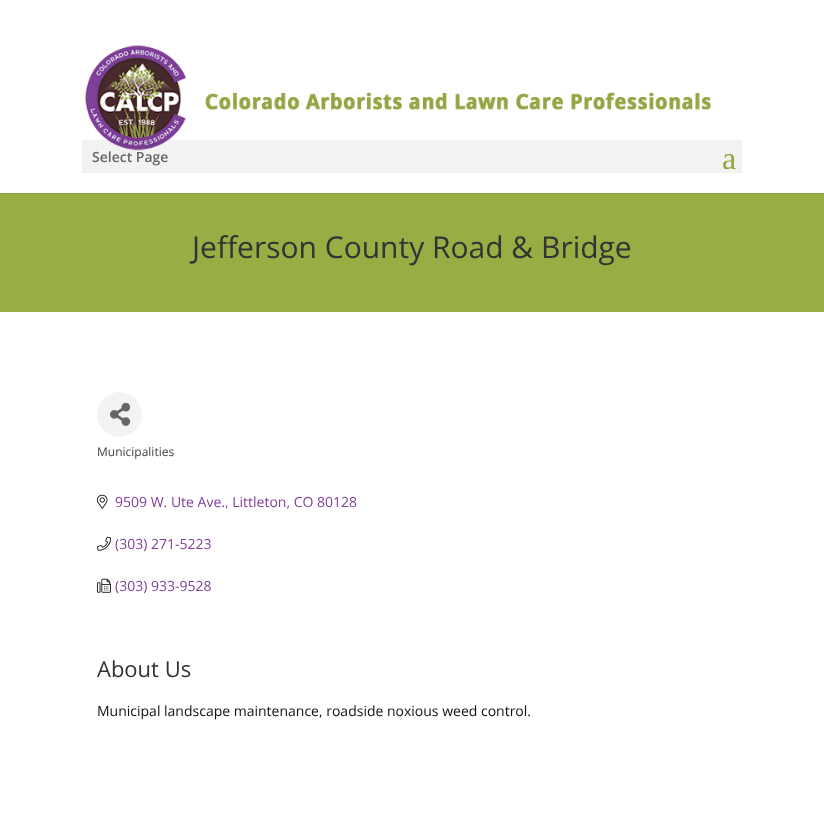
(async () => {
    const canvas = document.querySelector("canvas");
    canvas.width = 824;
    canvas.height = 815;
    const context = canvas.getContext("2d");
    context.miterLimit = 4;
    context.fontKerning = "normal";
    function write(s, x, y, font, color) {
        context.font = font;
        context.fillStyle = color;
        context.fillText(s, x, y);
    }
    function block(x, y, w, h, color) {
        context.fillStyle = color;
        context.fillRect(x, y, w, h);
    }
    async function photo(src, x, y, w, h) {
        const img = new Image();
        img.src = src;
        await img.decode();
        context.drawImage(img, x, y, w, h);
    }

    block(0, 0, 824, 815, "rgb(152, 174, 68)");
    block(0, 193, 824, 1, "rgb(137, 157, 61)");
    block(0, 0, 824, 193, "rgb(255, 255, 255)");
    await photo("media/1.png", 85, 45, 627, 106);
    block(82, 140, 660, 33, "rgba(0, 0, 0, 0.05)");
    write("Select Page", 92, 162, "600 14px Open Sans", "rgb(102, 102, 102)");
    write("a", 722, 169, "32px Liberation Serif", "rgb(148, 165, 69)");
    write("Jefferson County Road & Bridge", 192, 258, "30px Open Sans", "rgb(51, 51, 51)");
    block(0, 312, 824, 503, "rgb(255, 255, 255)");
    context.fillStyle = "rgb(243, 243, 243)";
    context.beginPath();
    context.arc(119.5, 414.5, 22.5, 0, Math.PI * 2);
    context.fill();
    await photo("media/2.png", 110, 402, 21, 24);
    write("Municipalities", 97, 456, "12px Open Sans", "rgb(65, 65, 65)");
    await photo("media/3.png", 97, 494, 11, 15);
    write("9509 W. Ute Ave., Littleton, CO 80128", 115, 507, "14px Open Sans", "rgb(127, 63, 152)");
    await photo("media/4.png", 97, 536, 14, 15);
    write("(303) 271-5223", 115, 549, "14px Open Sans", "rgb(127, 63, 152)");
    await photo("media/5.png", 97, 578, 14, 15);
    write("(303) 933-9528", 115, 591, "14px Open Sans", "rgb(127, 63, 152)");
    write("About Us", 97, 677, "22px Open Sans", "rgb(51, 51, 51)");
    write("Municipal landscape maintenance, roadside noxious weed control.", 97, 716, "14px Open Sans", "rgb(17, 17, 17)");
})();
